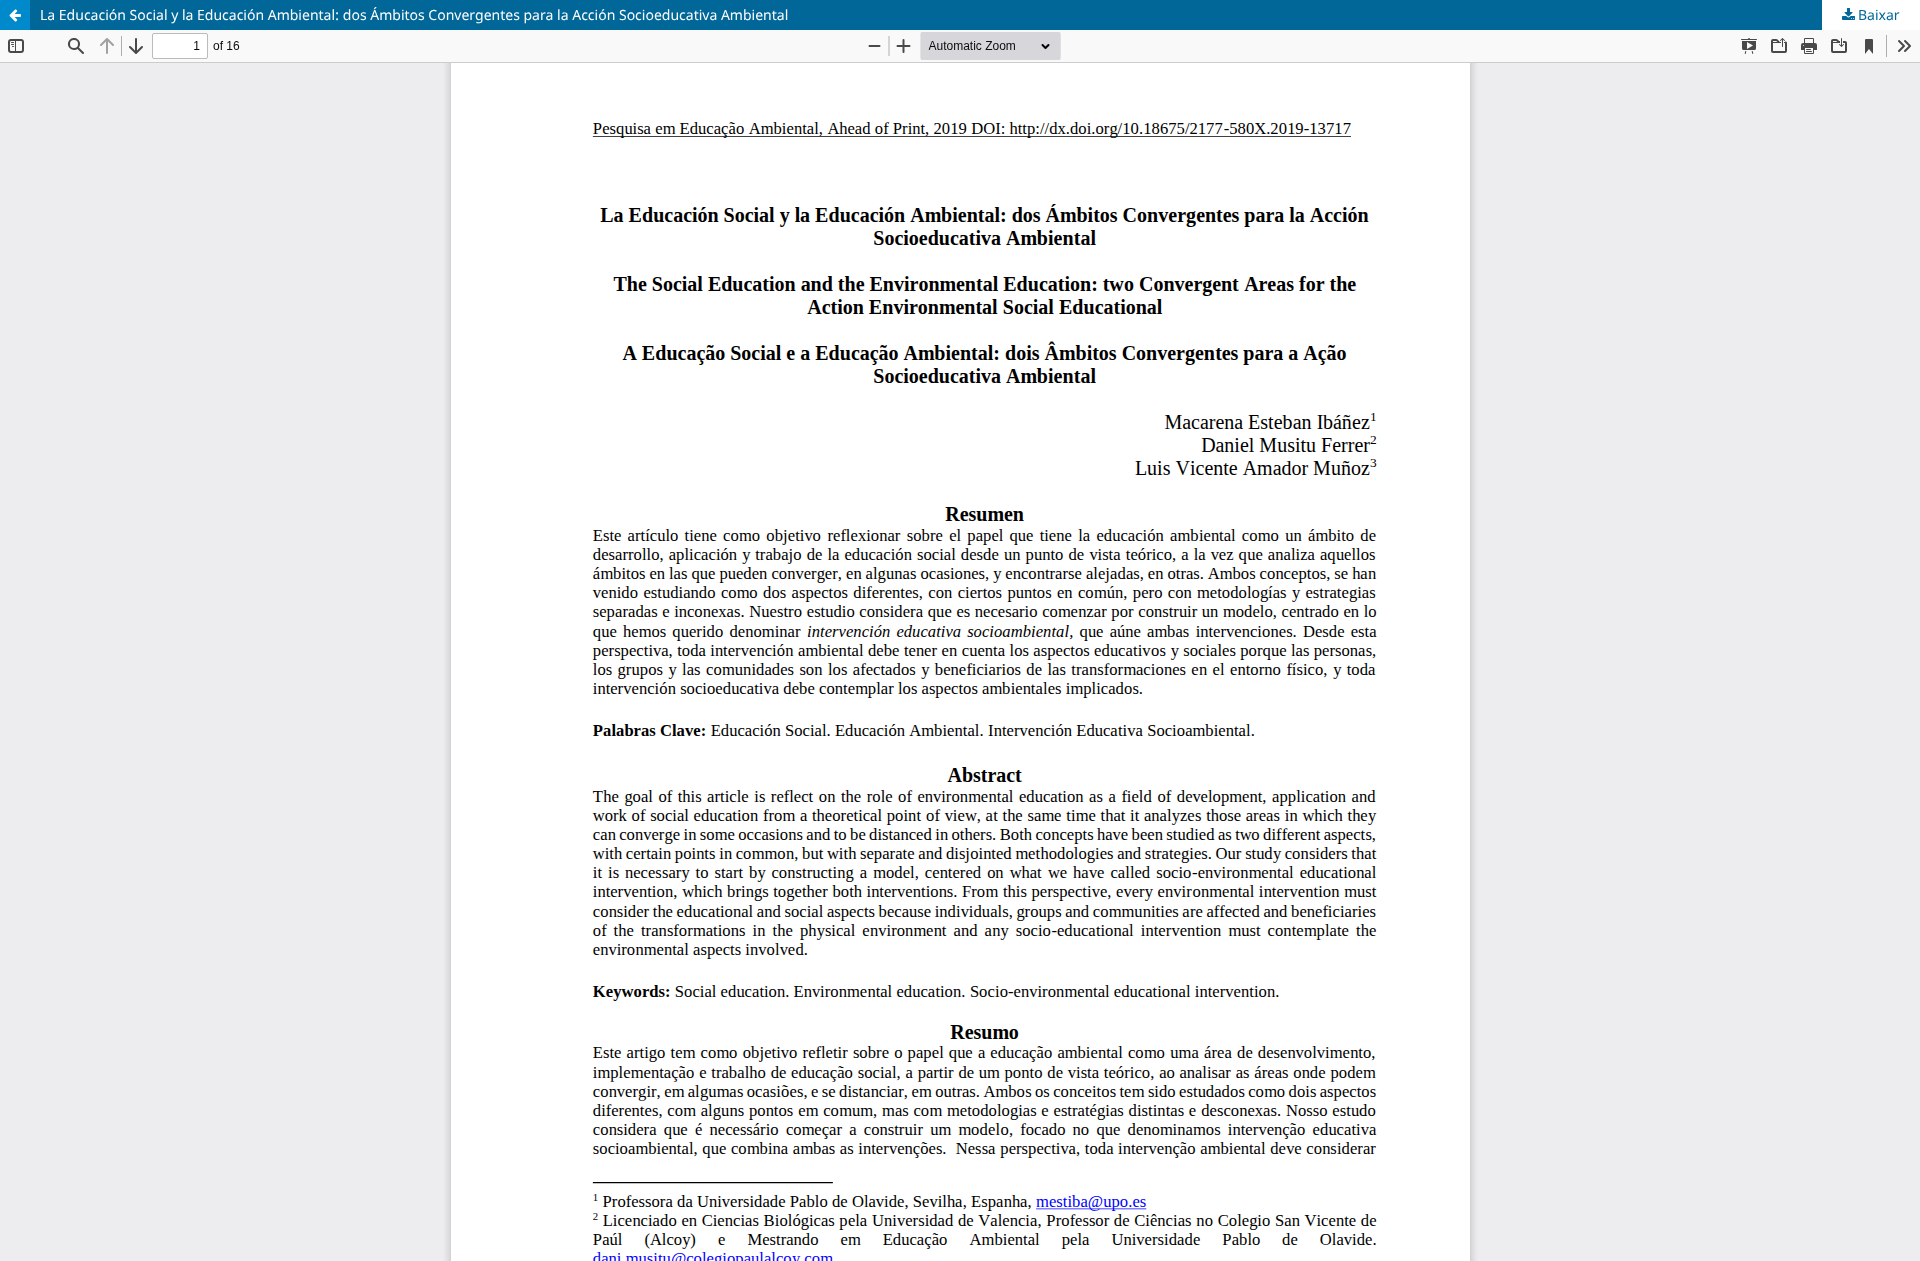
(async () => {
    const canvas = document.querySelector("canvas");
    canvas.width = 1920;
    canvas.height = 1261;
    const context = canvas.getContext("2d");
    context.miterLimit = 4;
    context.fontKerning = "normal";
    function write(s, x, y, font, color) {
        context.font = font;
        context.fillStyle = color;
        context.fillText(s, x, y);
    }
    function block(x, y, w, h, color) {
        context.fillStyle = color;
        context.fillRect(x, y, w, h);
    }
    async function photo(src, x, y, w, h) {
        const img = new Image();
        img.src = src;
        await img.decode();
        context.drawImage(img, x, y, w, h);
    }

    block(0, 0, 1920, 1261, "rgb(255, 255, 255)");
    block(30, 0, 1792, 30, "rgb(0, 103, 152)");
    block(0, 0, 30, 30, "rgb(0, 138, 203)");
    await photo("media/1.png", 9, 9, 12, 13);
    write("La Educación Social y la Educación Ambiental: dos Ámbitos Convergentes para la Acción Socioeducativa Ambiental", 40, 20, "14px Noto Sans", "rgb(255, 255, 255)");
    await photo("media/2.png", 1842, 8, 13, 12);
    write("Baixar", 1858, 20, "14px Noto Sans", "rgb(0, 103, 152)");
    await photo("media/3.png", 0, 30, 1920, 1231);
})();
